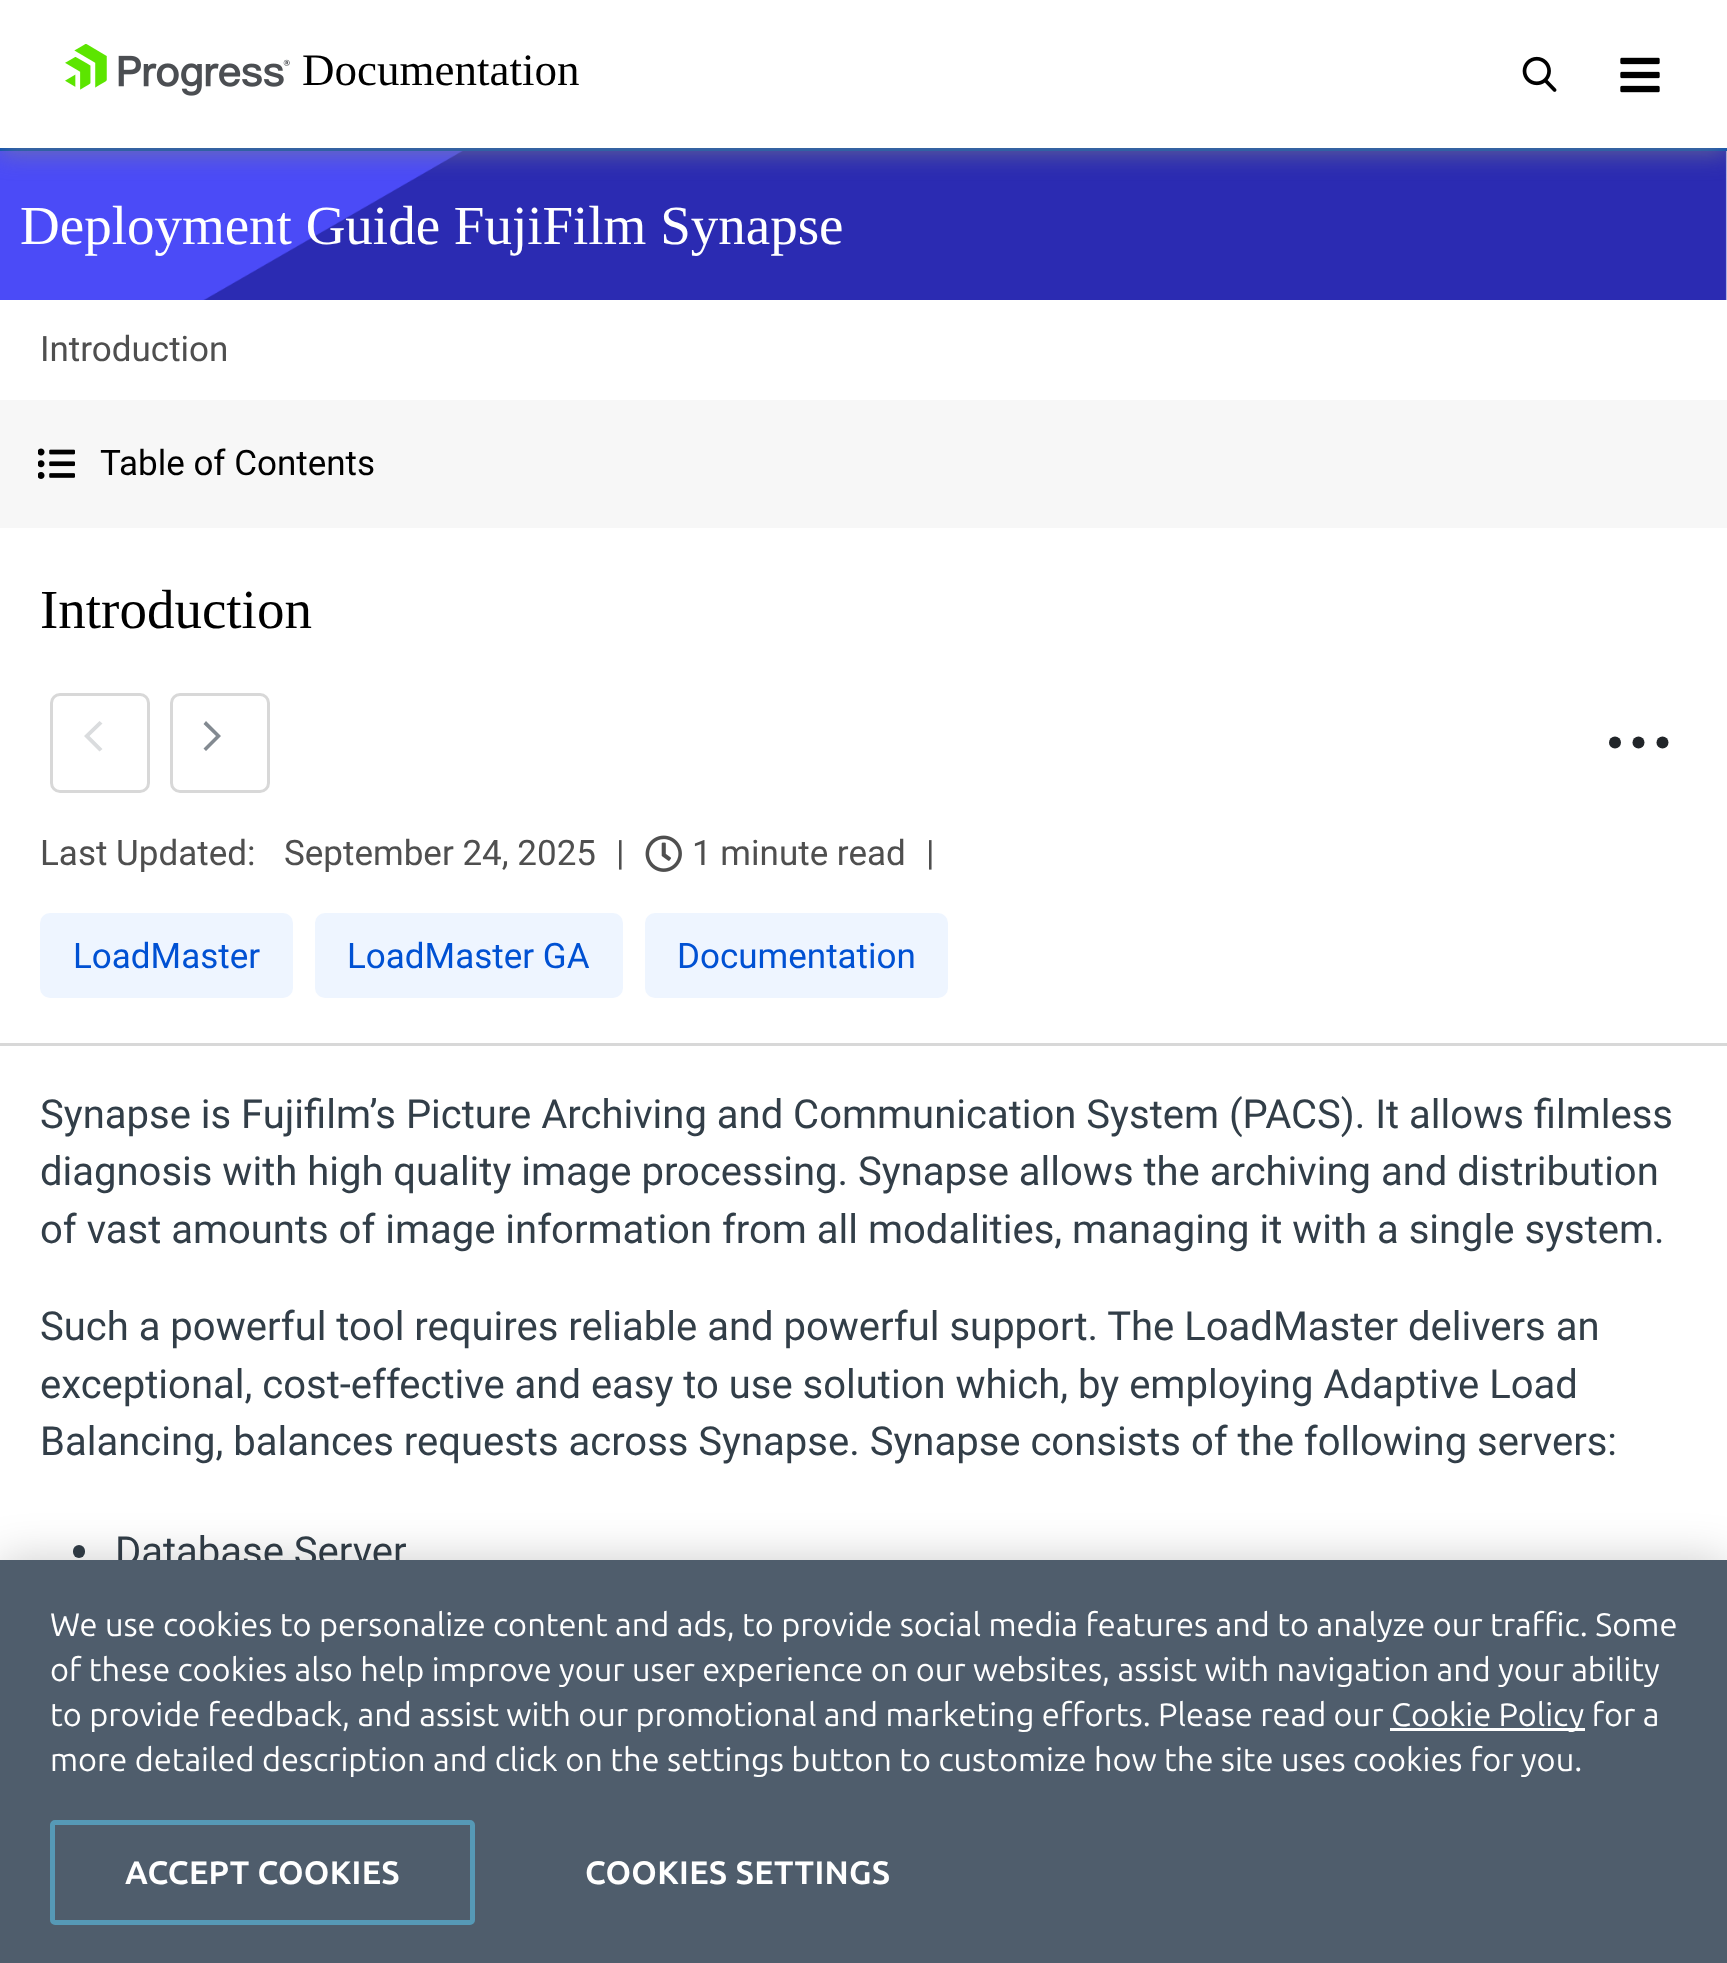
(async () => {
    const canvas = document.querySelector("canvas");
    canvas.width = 1727;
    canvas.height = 1963;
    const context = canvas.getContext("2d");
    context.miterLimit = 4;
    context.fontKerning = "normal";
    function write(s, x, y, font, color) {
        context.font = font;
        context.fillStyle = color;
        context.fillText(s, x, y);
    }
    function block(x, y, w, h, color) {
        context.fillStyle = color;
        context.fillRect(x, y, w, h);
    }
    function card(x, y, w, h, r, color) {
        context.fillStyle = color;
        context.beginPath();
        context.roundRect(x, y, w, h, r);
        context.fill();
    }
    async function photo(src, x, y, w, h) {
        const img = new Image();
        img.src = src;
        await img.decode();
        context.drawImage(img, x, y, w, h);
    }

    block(0, 0, 1727, 1963, "rgb(255, 255, 255)");
    block(0, 148, 1727, 3, "rgb(2, 77, 181)");
    await photo("media/4.png", 0, 151, 1727, 149);
    context.save();
    context.beginPath();
    context.moveTo(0, 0);
    context.lineTo(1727, 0);
    context.lineTo(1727, 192);
    context.lineTo(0, 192);
    context.closePath();
    context.moveTo(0, 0);
    context.lineTo(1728, 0);
    context.lineTo(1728, 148);
    context.lineTo(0, 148);
    context.closePath();
    context.clip("evenodd");
    context.fillStyle = "rgba(131, 132, 134, 0.62)";
    context.filter = "blur(12.5px)";
    context.beginPath();
    context.rect(0, 5, 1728, 148);
    context.fill();
    context.filter = "none";
    context.restore();
    await photo("media/1.png", 65, 44, 225, 52);
    write("Documentation", 302, 85, "45px Liberation Serif", "rgb(0, 0, 0)");
    await photo("media/2.png", 1522, 56, 35, 36);
    await photo("media/3.png", 1620, 57, 40, 36);
    write("Deployment Guide FujiFilm Synapse", 20, 244, "55px Liberation Serif", "rgb(255, 255, 255)");
    write("Introduction", 40, 361, "35px Roboto", "rgb(79, 79, 79)");
    block(0, 400, 1727, 128, "rgb(247, 247, 247)");
    await photo("media/5.png", 38, 448, 37, 31);
    write("Table of Contents", 100, 475, "35px Roboto", "rgb(0, 0, 0)");
    block(0, 1043, 1727, 3, "rgb(216, 216, 216)");
    write("Introduction", 40, 628, "55px Liberation Serif", "rgb(0, 0, 0)");
    context.beginPath();
    context.roundRect(51.5, 694.5, 97, 97, 8.5);
    context.strokeStyle = "rgb(216, 216, 216)";
    context.lineWidth = 3;
    context.stroke();
    context.fillStyle = "rgb(218, 220, 222)";
    context.beginPath();
    context.moveTo(102.5, 723.5);
    context.lineTo(99.5, 721);
    context.lineTo(84, 736);
    context.lineTo(99.5, 751.5);
    context.lineTo(102.5, 749);
    context.lineTo(89.5, 736);
    context.closePath();
    context.fill();
    context.beginPath();
    context.roundRect(171.5, 694.5, 97, 97, 8.5);
    context.stroke();
    context.fillStyle = "rgb(131, 138, 145)";
    context.beginPath();
    context.moveTo(203.5, 748.5);
    context.lineTo(206, 751);
    context.lineTo(221, 736);
    context.lineTo(206, 721);
    context.lineTo(203.5, 724);
    context.lineTo(216, 736);
    context.closePath();
    context.fill();
    context.fillStyle = "rgb(33, 37, 41)";
    context.beginPath();
    context.arc(1615, 742.5, 6, 0, Math.PI * 2);
    context.fill();
    context.beginPath();
    context.arc(1638.5, 742.5, 6, 0, Math.PI * 2);
    context.fill();
    context.beginPath();
    context.arc(1662.5, 742.5, 6, 0, Math.PI * 2);
    context.fill();
    write("Last Updated:", 40, 865, "35px Roboto", "rgb(79, 79, 79)");
    write("September 24, 2025", 284, 865, "35px Roboto", "rgb(79, 79, 79)");
    write("|", 616, 865, "35px Roboto", "rgb(79, 79, 79)");
    await photo("media/6.png", 645, 835, 37, 37);
    write("1 minute read", 692, 865, "35px Roboto", "rgb(79, 79, 79)");
    write("|", 926, 865, "35px Roboto", "rgb(79, 79, 79)");
    card(40, 913, 253, 85, 10, "rgb(238, 245, 255)");
    write("LoadMaster", 73, 968, "35px Roboto", "rgb(0, 81, 211)");
    card(315, 913, 308, 85, 10, "rgb(238, 245, 255)");
    write("LoadMaster GA", 347, 968, "35px Roboto", "rgb(0, 81, 211)");
    card(645, 913, 303, 85, 10, "rgb(238, 245, 255)");
    write("Documentation", 677, 968, "35px Roboto", "rgb(0, 81, 211)");
    write("Synapse is Fujifilm’s Picture Archiving and Communication System (PACS). It allows filmless", 40, 1128, "40px Roboto", "rgb(50, 62, 72)");
    write("diagnosis with high quality image processing. Synapse allows the archiving and distribution", 40, 1185, "40px Roboto", "rgb(50, 62, 72)");
    write("of vast amounts of image information from all modalities, managing it with a single system.", 40, 1243, "40px Roboto", "rgb(50, 62, 72)");
    write("Such a powerful tool requires reliable and powerful support. The LoadMaster delivers an", 40, 1340, "40px Roboto", "rgb(50, 62, 72)");
    write("exceptional, cost-effective and easy to use solution which, by employing Adaptive Load", 40, 1398, "40px Roboto", "rgb(50, 62, 72)");
    write("Balancing, balances requests across Synapse. Synapse consists of the following servers:", 40, 1455, "40px Roboto", "rgb(50, 62, 72)");
    card(73, 1545, 12, 13, 6, "rgb(50, 62, 72)");
    write("Database Server", 115, 1565, "40px Roboto", "rgb(50, 62, 72)");
    context.fillStyle = "rgba(0, 0, 0, 0.2)";
    context.filter = "blur(22.5px)";
    context.beginPath();
    context.rect(0, 1560, 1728, 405);
    context.fill();
    context.filter = "none";
    block(0, 1560, 1727, 403, "rgb(79, 93, 108)");
    write("We use cookies to personalize content and ads, to provide social media features and to analyze our traffic. Some", 50, 1636, "32.5px Ubuntu", "rgb(255, 255, 255)");
    write("of these cookies also help improve your user experience on our websites, assist with navigation and your ability", 50, 1681, "32.5px Ubuntu", "rgb(255, 255, 255)");
    write("to provide feedback, and assist with our promotional and marketing efforts. Please read our", 50, 1726, "32.5px Ubuntu", "rgb(255, 255, 255)");
    block(1390, 1728, 195, 3, "rgb(255, 255, 255)");
    write("Cookie Policy for a", 1391, 1726, "32.5px Ubuntu", "rgb(255, 255, 255)");
    write("more detailed description and click on the settings button to customize how the site uses cookies for you.", 50, 1771, "32.5px Ubuntu", "rgb(255, 255, 255)");
    context.beginPath();
    context.roundRect(52.5, 1822.5, 420, 100, 2.5);
    context.strokeStyle = "rgb(86, 153, 182)";
    context.lineWidth = 5;
    context.stroke();
    context.letterSpacing = "0.3px";
    write("ACCEPT COOKIES", 125, 1884, "bold 32.5px Ubuntu", "rgb(255, 255, 255)");
    write("COOKIES SETTINGS", 585, 1884, "bold 32.5px Ubuntu", "rgb(255, 255, 255)");
})();
